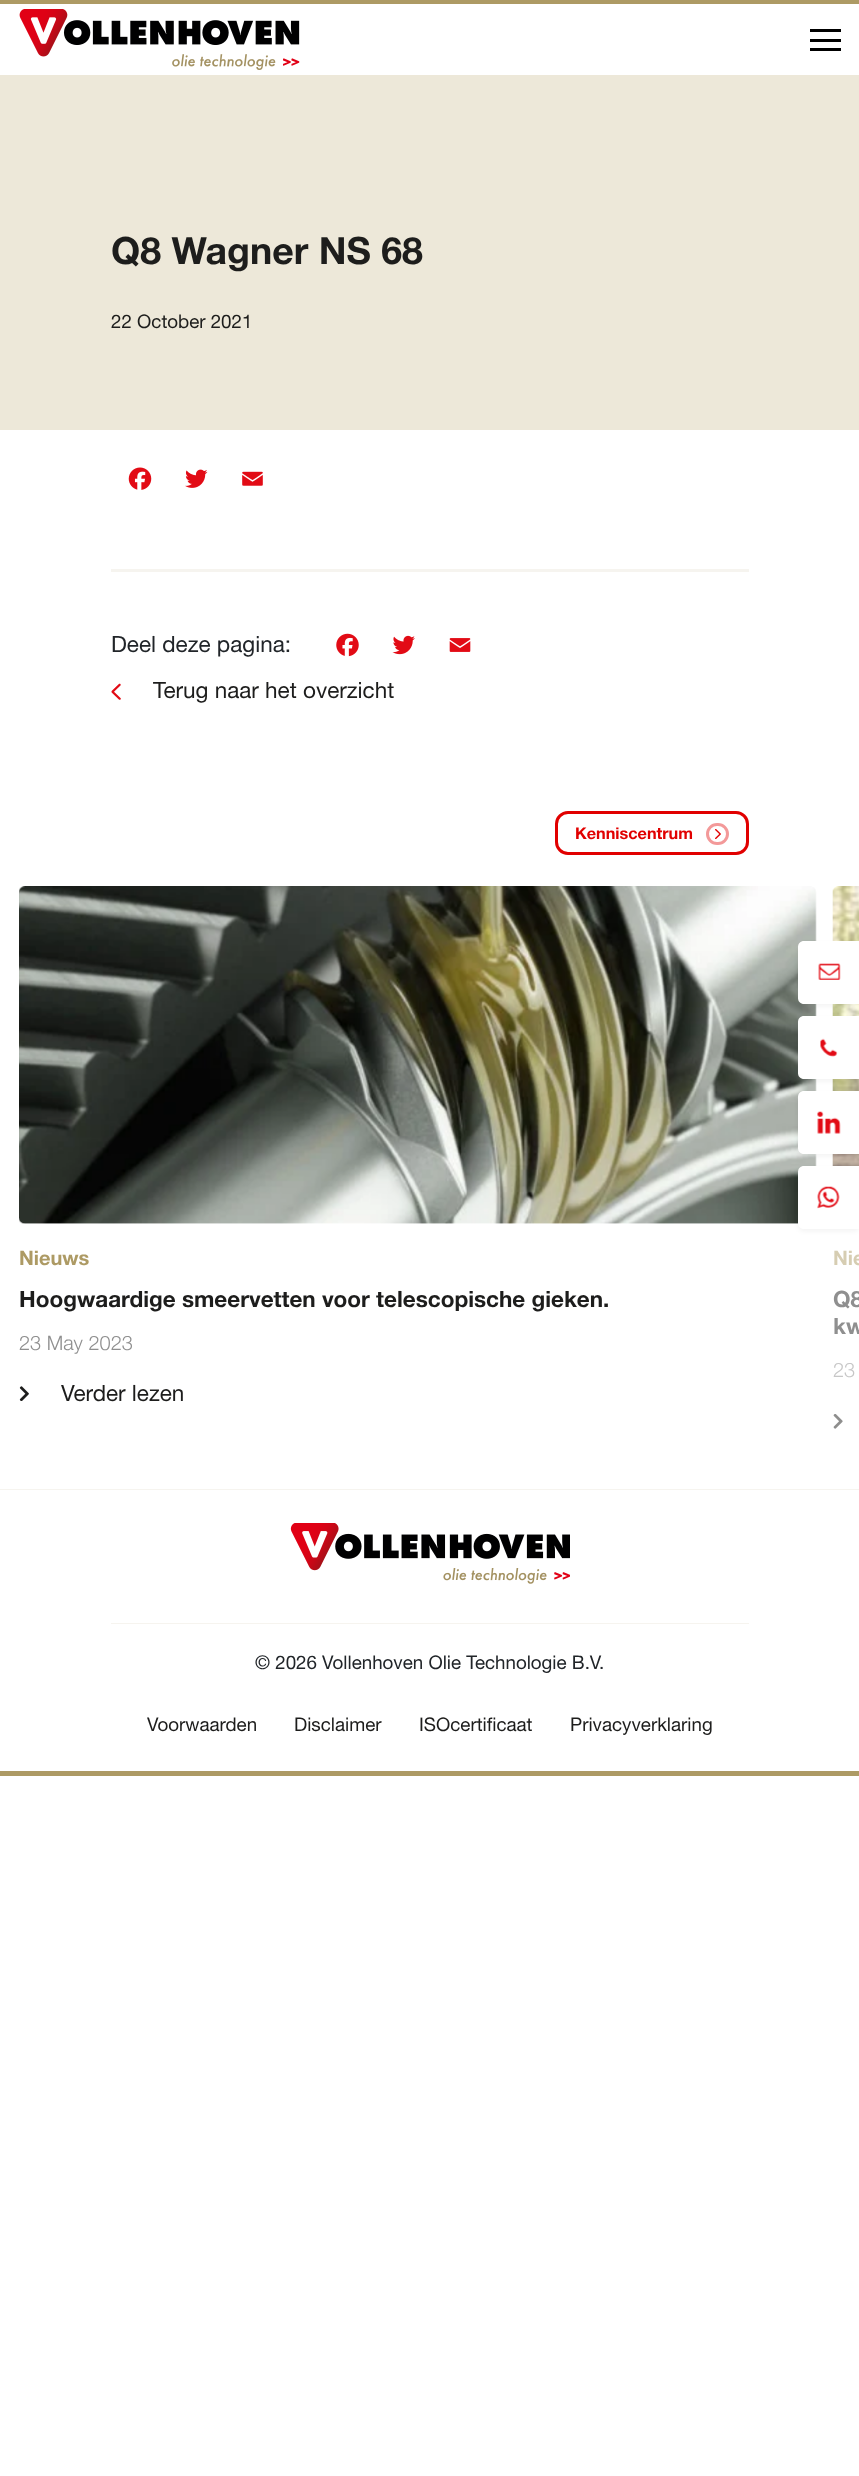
(async () => {
    const canvas = document.querySelector("canvas");
    canvas.width = 859;
    canvas.height = 2476;
    const context = canvas.getContext("2d");
    context.miterLimit = 4;
    context.fontKerning = "normal";
    function write(s, x, y, font, color) {
        context.font = font;
        context.fillStyle = color;
        context.fillText(s, x, y);
    }
    function block(x, y, w, h, color) {
        context.fillStyle = color;
        context.fillRect(x, y, w, h);
    }
    async function photo(src, x, y, w, h) {
        const img = new Image();
        img.src = src;
        await img.decode();
        context.drawImage(img, x, y, w, h);
    }

    block(0, 0, 859, 2476, "rgb(255, 255, 255)");
    block(0, 0, 859, 4, "rgb(173, 154, 100)");
    await photo("media/1.png", 19, 9, 281, 61);
    block(810, 29, 31, 3, "rgb(0, 0, 0)");
    block(810, 39, 31, 3, "rgb(0, 0, 0)");
    block(810, 48, 31, 3, "rgb(0, 0, 0)");
    block(0, 75, 859, 355, "rgb(237, 232, 217)");
    write("Q8 Wagner NS 68", 111, 264, "bold 37.5px Helvetica Neue", "rgb(29, 29, 28)");
    write("22 October 2021", 111, 328, "18.75px Helvetica Neue", "rgb(29, 29, 28)");
    await photo("media/2.png", 128, 467, 24, 23);
    await photo("media/3.png", 185, 469, 23, 19);
    await photo("media/4.png", 242, 471, 21, 15);
    block(111, 569, 638, 3, "rgb(246, 244, 239)");
    write("Deel deze pagina:", 111, 652, "22.5px Helvetica Neue", "rgb(33, 37, 41)");
    await photo("media/5.png", 336, 633, 23, 24);
    await photo("media/6.png", 392, 635, 23, 20);
    await photo("media/7.png", 449, 638, 22, 14);
    await photo("media/8.png", 111, 683, 10, 17);
    write("Terug naar het overzicht", 153, 698, "22.5px Helvetica Neue", "rgb(29, 29, 28)");
    context.beginPath();
    context.roundRect(556.5, 812.5, 191, 41, 11.5);
    context.strokeStyle = "rgb(225, 0, 0)";
    context.lineWidth = 3;
    context.stroke();
    write("Kenniscentrum", 575, 839, "bold 16.25px Helvetica Neue", "rgb(225, 0, 0)");
    context.beginPath();
    context.roundRect(707.5, 824.5, 20, 19, 9.5);
    context.strokeStyle = "rgb(243, 153, 153)";
    context.stroke();
    await photo("media/9.png", 715, 829, 6, 10);
    await photo("media/10.png", 19, 886, 798, 338);
    write("Nieuws", 19, 1265, "bold 20px Helvetica Neue", "rgb(173, 154, 100)");
    write("Hoogwaardige smeervetten voor telescopische gieken.", 19, 1307, "bold 22.5px Helvetica Neue", "rgb(29, 29, 28)");
    write("23 May 2023", 19, 1350, "300 20px Helvetica Neue", "rgb(143, 143, 143)");
    await photo("media/11.png", 19, 1386, 10, 15);
    write("Verder lezen", 61, 1401, "22.5px Helvetica Neue", "rgb(29, 29, 28)");
    await photo("media/12.png", 832, 886, 27, 280);
    write("Nie", 833, 1265, "bold 20px Helvetica Neue", "rgb(214, 205, 178)");
    write("Q8", 833, 1307, "bold 22.5px Helvetica Neue", "rgb(143, 143, 143)");
    write("kw", 833, 1334, "bold 22.5px Helvetica Neue", "rgb(143, 143, 143)");
    write("23", 833, 1377, "300 20px Helvetica Neue", "rgb(199, 199, 199)");
    await photo("media/13.png", 833, 1414, 10, 15);
    context.fillStyle = "rgba(0, 0, 0, 0.05)";
    context.filter = "blur(2.5px)";
    context.beginPath();
    context.roundRect(798, 944, 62, 62, 6);
    context.fill();
    context.filter = "none";
    context.fillStyle = "rgb(255, 255, 255)";
    context.beginPath();
    context.moveTo(804, 941);
    context.lineTo(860, 941);
    context.lineTo(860, 1004);
    context.lineTo(804, 1004);
    context.bezierCurveTo(800.5, 1004, 798, 1001.5, 798, 998);
    context.lineTo(798, 947);
    context.bezierCurveTo(798, 943.5, 800.5, 941, 804, 941);
    context.closePath();
    context.fill();
    await photo("media/14.png", 818, 963, 23, 17);
    context.fillStyle = "rgba(0, 0, 0, 0.05)";
    context.filter = "blur(2.5px)";
    context.beginPath();
    context.roundRect(798, 1019, 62, 62, 6);
    context.fill();
    context.filter = "none";
    context.fillStyle = "rgb(255, 255, 255)";
    context.beginPath();
    context.moveTo(804, 1016);
    context.lineTo(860, 1016);
    context.lineTo(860, 1079);
    context.lineTo(804, 1079);
    context.bezierCurveTo(800.5, 1079, 798, 1076.5, 798, 1073);
    context.lineTo(798, 1022);
    context.bezierCurveTo(798, 1018.5, 800.5, 1016, 804, 1016);
    context.closePath();
    context.fill();
    await photo("media/15.png", 820, 1038, 18, 19);
    context.fillStyle = "rgba(0, 0, 0, 0.05)";
    context.filter = "blur(2.5px)";
    context.beginPath();
    context.roundRect(798, 1094, 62, 62, 6);
    context.fill();
    context.filter = "none";
    context.fillStyle = "rgb(255, 255, 255)";
    context.beginPath();
    context.moveTo(804, 1091);
    context.lineTo(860, 1091);
    context.lineTo(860, 1154);
    context.lineTo(804, 1154);
    context.bezierCurveTo(800.5, 1154, 798, 1151.5, 798, 1148);
    context.lineTo(798, 1097);
    context.bezierCurveTo(798, 1093.5, 800.5, 1091, 804, 1091);
    context.closePath();
    context.fill();
    await photo("media/16.png", 817, 1111, 24, 23);
    context.fillStyle = "rgba(0, 0, 0, 0.05)";
    context.filter = "blur(2.5px)";
    context.beginPath();
    context.roundRect(798, 1169, 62, 62, 6);
    context.fill();
    context.filter = "none";
    context.fillStyle = "rgb(255, 255, 255)";
    context.beginPath();
    context.moveTo(804, 1166);
    context.lineTo(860, 1166);
    context.lineTo(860, 1229);
    context.lineTo(804, 1229);
    context.bezierCurveTo(800.5, 1229, 798, 1226.5, 798, 1223);
    context.lineTo(798, 1172);
    context.bezierCurveTo(798, 1168.5, 800.5, 1166, 804, 1166);
    context.closePath();
    context.fill();
    await photo("media/17.png", 817, 1186, 23, 23);
    block(0, 1489, 859, 1, "rgb(246, 244, 239)");
    block(0, 1771, 859, 5, "rgb(173, 154, 100)");
    await photo("media/18.png", 290, 1523, 280, 61);
    block(111, 1623, 638, 1, "rgb(246, 244, 239)");
    write("© 2026 Vollenhoven Olie Technologie B.V.", 255, 1669, "18.75px Helvetica Neue", "rgb(33, 37, 41)");
    write("Voorwaarden", 147, 1731, "18.75px Helvetica Neue", "rgb(29, 29, 28)");
    write("Disclaimer", 294, 1731, "18.75px Helvetica Neue", "rgb(29, 29, 28)");
    write("ISOcertificaat", 419, 1731, "18.75px Helvetica Neue", "rgb(29, 29, 28)");
    write("Privacyverklaring", 570, 1731, "18.75px Helvetica Neue", "rgb(29, 29, 28)");
})();
